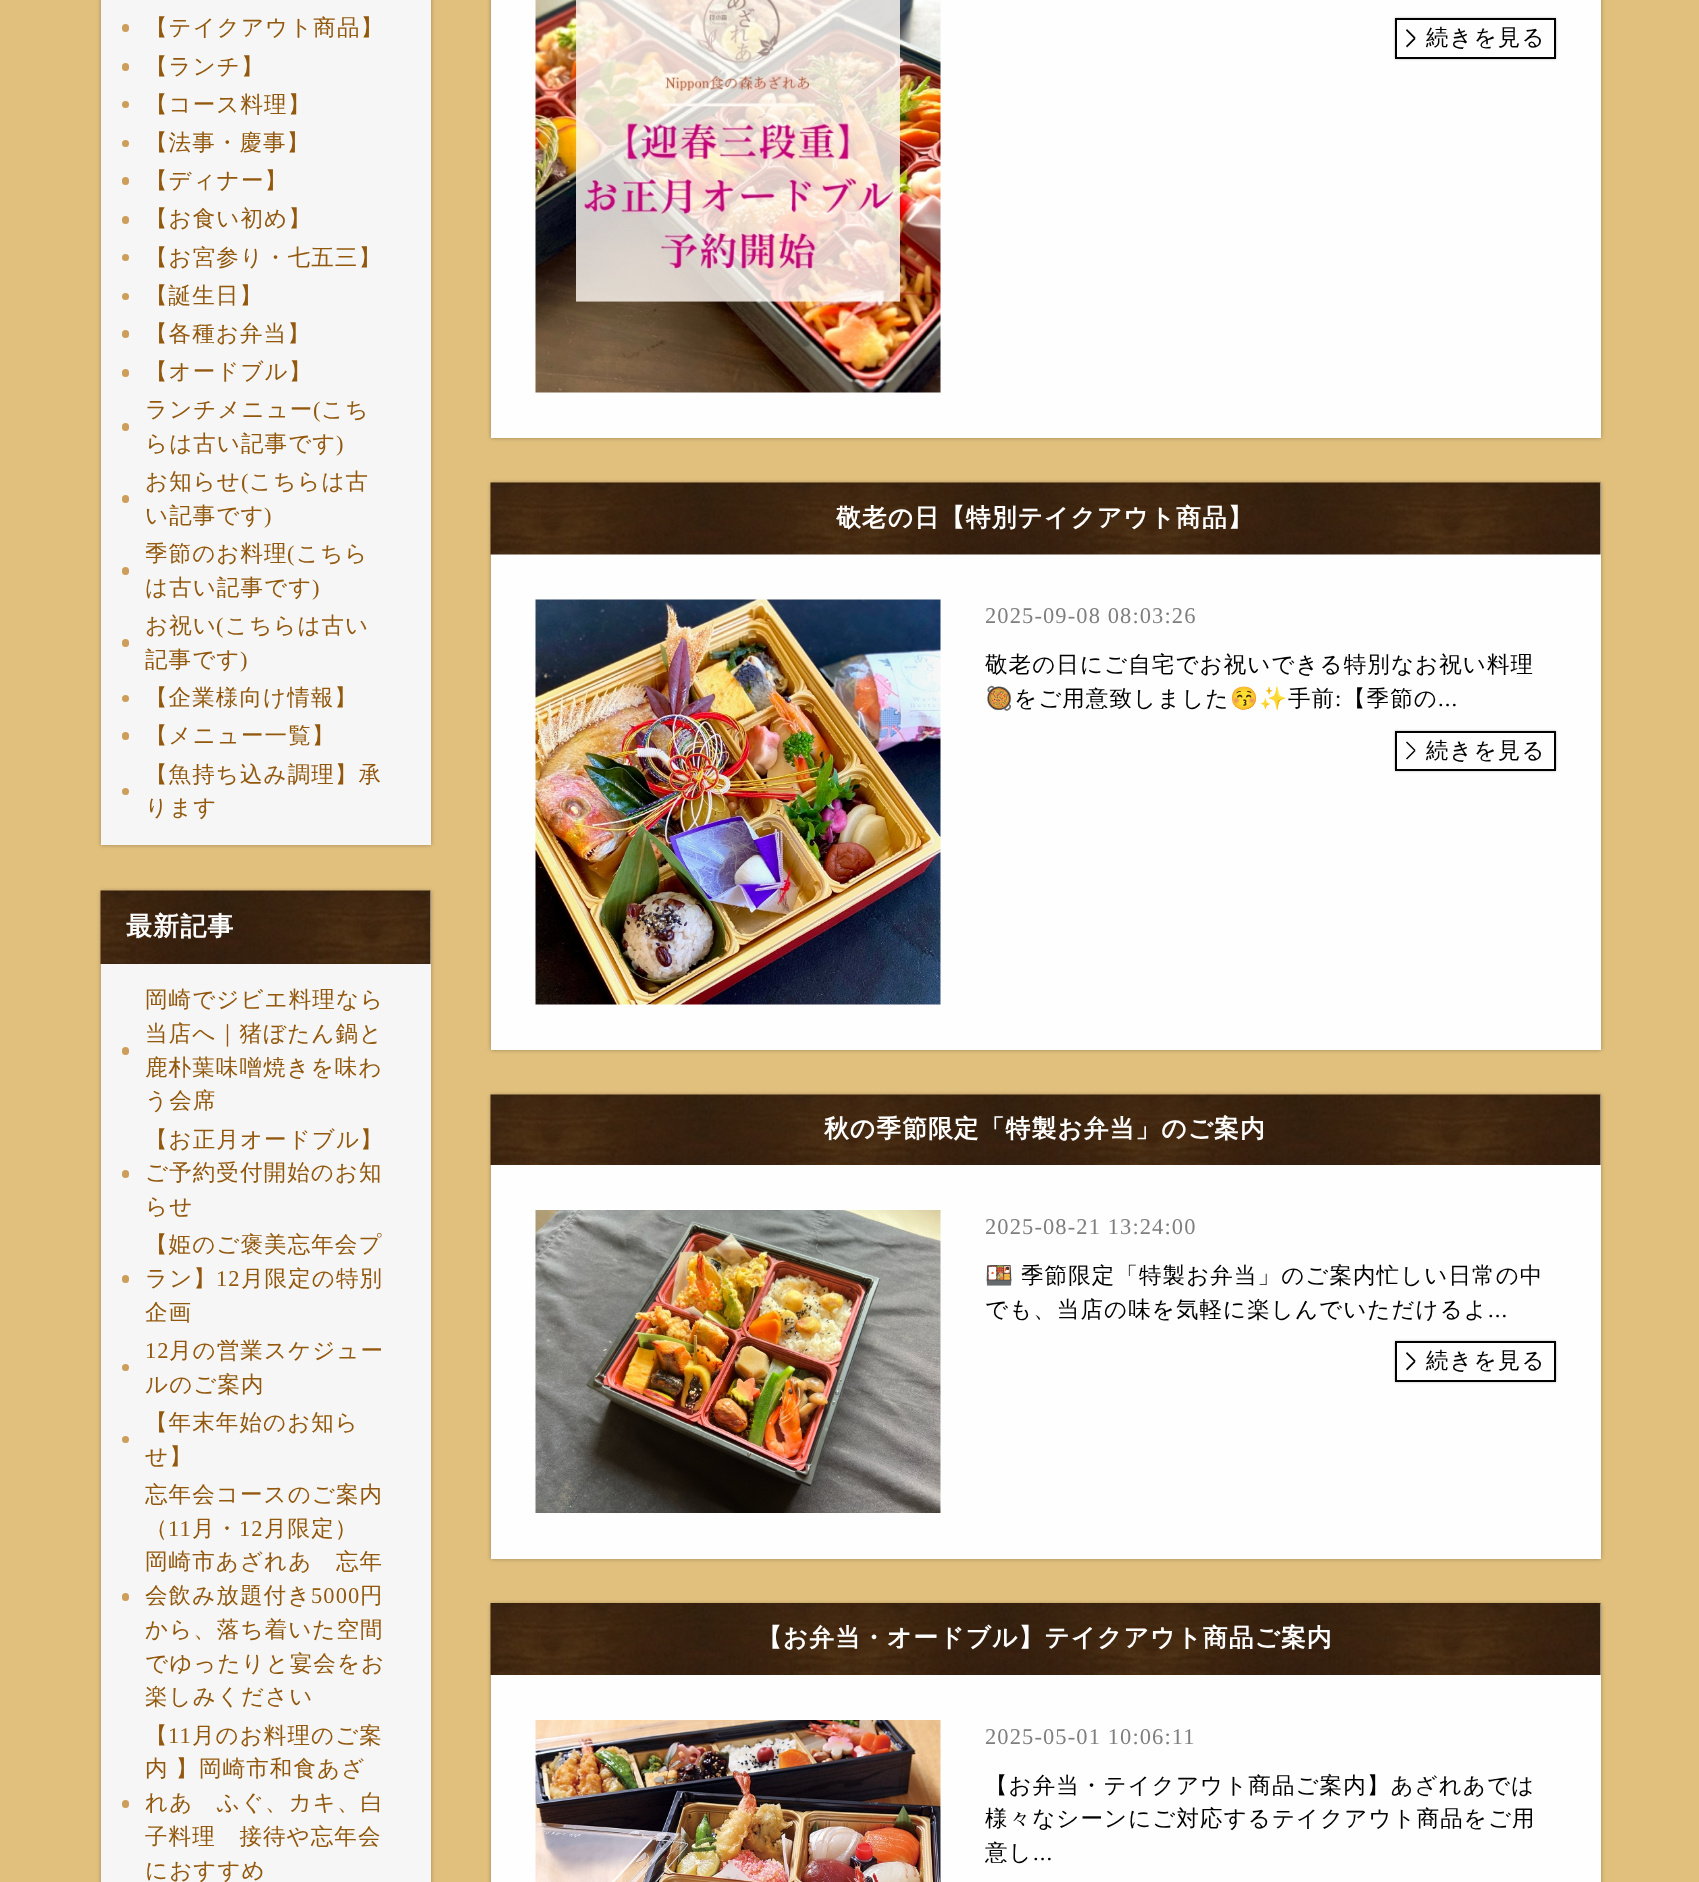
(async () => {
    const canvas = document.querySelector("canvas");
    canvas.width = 1699;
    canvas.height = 1882;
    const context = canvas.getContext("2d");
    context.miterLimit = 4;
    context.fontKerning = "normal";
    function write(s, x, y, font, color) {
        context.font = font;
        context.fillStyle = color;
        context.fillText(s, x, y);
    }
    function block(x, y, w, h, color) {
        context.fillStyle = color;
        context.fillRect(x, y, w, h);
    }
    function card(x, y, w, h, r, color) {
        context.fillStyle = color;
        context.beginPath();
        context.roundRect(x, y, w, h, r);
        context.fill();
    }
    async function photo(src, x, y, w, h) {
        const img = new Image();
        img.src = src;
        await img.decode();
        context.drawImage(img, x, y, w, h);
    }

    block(0, 0, 1699, 1882, "rgb(225, 192, 125)");
    context.fillStyle = "rgba(0, 0, 0, 0.3)";
    context.filter = "blur(2px)";
    context.beginPath();
    context.rect(101, -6, 330, 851);
    context.fill();
    context.filter = "none";
    block(101, 0, 330, 845, "rgb(246, 246, 246)");
    card(122, 24, 7, 8, 3.5, "rgb(204, 158, 90)");
    context.letterSpacing = "1.1px";
    write("【テイクアウト商品】", 145, 35, "500 22.5px WenQuanYi Zen Hei", "rgb(146, 88, 13)");
    card(122, 63, 7, 8, 3.5, "rgb(204, 158, 90)");
    write("【ランチ】", 145, 74, "500 22.5px WenQuanYi Zen Hei", "rgb(146, 88, 13)");
    context.fillStyle = "rgb(204, 158, 90)";
    context.beginPath();
    context.arc(125.5, 104.5, 3.5, 0, Math.PI * 2);
    context.fill();
    write("【コース料理】", 145, 112, "500 22.5px WenQuanYi Zen Hei", "rgb(146, 88, 13)");
    context.fillStyle = "rgb(204, 158, 90)";
    context.beginPath();
    context.arc(125.5, 143.5, 3.5, 0, Math.PI * 2);
    context.fill();
    write("【法事・慶事】", 145, 150, "500 22.5px WenQuanYi Zen Hei", "rgb(146, 88, 13)");
    card(122, 177, 7, 8, 3.5, "rgb(204, 158, 90)");
    write("【ディナー】", 145, 188, "500 22.5px WenQuanYi Zen Hei", "rgb(146, 88, 13)");
    card(122, 216, 7, 8, 3.5, "rgb(204, 158, 90)");
    write("【お食い初め】", 145, 226, "500 22.5px WenQuanYi Zen Hei", "rgb(146, 88, 13)");
    context.fillStyle = "rgb(204, 158, 90)";
    context.beginPath();
    context.arc(125.5, 257.5, 3.5, 0, Math.PI * 2);
    context.fill();
    write("【お宮参り・七五三】", 145, 265, "500 22.5px WenQuanYi Zen Hei", "rgb(146, 88, 13)");
    context.fillStyle = "rgb(204, 158, 90)";
    context.beginPath();
    context.arc(125.5, 296.5, 3.5, 0, Math.PI * 2);
    context.fill();
    write("【誕生日】", 145, 303, "500 22.5px WenQuanYi Zen Hei", "rgb(146, 88, 13)");
    card(122, 330, 7, 8, 3.5, "rgb(204, 158, 90)");
    write("【各種お弁当】", 145, 341, "500 22.5px WenQuanYi Zen Hei", "rgb(146, 88, 13)");
    card(122, 369, 7, 8, 3.5, "rgb(204, 158, 90)");
    write("【オードブル】", 145, 379, "500 22.5px WenQuanYi Zen Hei", "rgb(146, 88, 13)");
    write("ランチメニュー", 145, 417, "500 22.5px WenQuanYi Zen Hei", "rgb(146, 88, 13)");
    write("(", 313, 417, "22.5px Liberation Serif", "rgb(146, 88, 13)");
    write("こち", 321, 417, "500 22.5px WenQuanYi Zen Hei", "rgb(146, 88, 13)");
    card(122, 423, 7, 8, 3.5, "rgb(204, 158, 90)");
    write("らは古い記事です", 145, 451, "500 22.5px WenQuanYi Zen Hei", "rgb(146, 88, 13)");
    write(")", 336, 451, "22.5px Liberation Serif", "rgb(146, 88, 13)");
    write("お知らせ", 145, 489, "500 22.5px WenQuanYi Zen Hei", "rgb(146, 88, 13)");
    write("(", 241, 489, "22.5px Liberation Serif", "rgb(146, 88, 13)");
    write("こちらは古", 249, 489, "500 22.5px WenQuanYi Zen Hei", "rgb(146, 88, 13)");
    card(122, 495, 7, 8, 3.5, "rgb(204, 158, 90)");
    write("い記事です", 145, 523, "500 22.5px WenQuanYi Zen Hei", "rgb(146, 88, 13)");
    write(")", 264, 523, "22.5px Liberation Serif", "rgb(146, 88, 13)");
    write("季節のお料理", 145, 561, "500 22.5px WenQuanYi Zen Hei", "rgb(146, 88, 13)");
    write("(", 287, 561, "22.5px Liberation Serif", "rgb(146, 88, 13)");
    write("こちら", 296, 561, "500 22.5px WenQuanYi Zen Hei", "rgb(146, 88, 13)");
    card(122, 567, 7, 8, 3.5, "rgb(204, 158, 90)");
    write("は古い記事です", 145, 595, "500 22.5px WenQuanYi Zen Hei", "rgb(146, 88, 13)");
    write(")", 312, 595, "22.5px Liberation Serif", "rgb(146, 88, 13)");
    write("お祝い", 145, 633, "500 22.5px WenQuanYi Zen Hei", "rgb(146, 88, 13)");
    write("(", 216, 633, "22.5px Liberation Serif", "rgb(146, 88, 13)");
    write("こちらは古い", 225, 633, "500 22.5px WenQuanYi Zen Hei", "rgb(146, 88, 13)");
    card(122, 639, 7, 8, 3.5, "rgb(204, 158, 90)");
    write("記事です", 145, 667, "500 22.5px WenQuanYi Zen Hei", "rgb(146, 88, 13)");
    write(")", 240, 667, "22.5px Liberation Serif", "rgb(146, 88, 13)");
    context.fillStyle = "rgb(204, 158, 90)";
    context.beginPath();
    context.arc(125.5, 698.5, 3.5, 0, Math.PI * 2);
    context.fill();
    write("【企業様向け情報】", 145, 705, "500 22.5px WenQuanYi Zen Hei", "rgb(146, 88, 13)");
    card(122, 732, 7, 8, 3.5, "rgb(204, 158, 90)");
    write("【メニュー一覧】", 145, 743, "500 22.5px WenQuanYi Zen Hei", "rgb(146, 88, 13)");
    write("【魚持ち込み調理】承", 145, 782, "500 22.5px WenQuanYi Zen Hei", "rgb(146, 88, 13)");
    context.fillStyle = "rgb(204, 158, 90)";
    context.beginPath();
    context.arc(125.5, 791.5, 3.5, 0, Math.PI * 2);
    context.fill();
    write("ります", 145, 815, "500 22.5px WenQuanYi Zen Hei", "rgb(146, 88, 13)");
    context.fillStyle = "rgba(0, 0, 0, 0.3)";
    context.filter = "blur(2px)";
    context.beginPath();
    context.rect(101, 891, 330, 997);
    context.fill();
    context.filter = "none";
    block(101, 891, 330, 991, "rgb(246, 246, 246)");
    await photo("media/1.png", 100, 890, 331, 74);
    write("最新記事", 126, 935, "bold 26px WenQuanYi Zen Hei", "rgb(254, 254, 254)");
    write("岡崎でジビエ料理なら", 145, 1007, "500 22.5px WenQuanYi Zen Hei", "rgb(146, 88, 13)");
    write("当店へ｜猪ぼたん鍋と", 145, 1041, "500 22.5px WenQuanYi Zen Hei", "rgb(146, 88, 13)");
    card(122, 1047, 7, 8, 3.5, "rgb(204, 158, 90)");
    write("鹿朴葉味噌焼きを味わ", 145, 1075, "500 22.5px WenQuanYi Zen Hei", "rgb(146, 88, 13)");
    write("う会席", 145, 1108, "500 22.5px WenQuanYi Zen Hei", "rgb(146, 88, 13)");
    write("【お正月オードブル】", 145, 1147, "500 22.5px WenQuanYi Zen Hei", "rgb(146, 88, 13)");
    card(122, 1170, 7, 8, 3.5, "rgb(204, 158, 90)");
    write("ご予約受付開始のお知", 145, 1180, "500 22.5px WenQuanYi Zen Hei", "rgb(146, 88, 13)");
    write("らせ", 145, 1214, "500 22.5px WenQuanYi Zen Hei", "rgb(146, 88, 13)");
    write("【姫のご褒美忘年会プ", 145, 1252, "500 22.5px WenQuanYi Zen Hei", "rgb(146, 88, 13)");
    card(122, 1275, 7, 8, 3.5, "rgb(204, 158, 90)");
    write("ラン】", 145, 1286, "500 22.5px WenQuanYi Zen Hei", "rgb(146, 88, 13)");
    write("12", 216, 1286, "22.5px Liberation Serif", "rgb(146, 88, 13)");
    write("月限定の特別", 241, 1286, "500 22.5px WenQuanYi Zen Hei", "rgb(146, 88, 13)");
    write("企画", 145, 1320, "500 22.5px WenQuanYi Zen Hei", "rgb(146, 88, 13)");
    write("12", 145, 1358, "22.5px Liberation Serif", "rgb(146, 88, 13)");
    write("月の営業スケジュー", 169, 1358, "500 22.5px WenQuanYi Zen Hei", "rgb(146, 88, 13)");
    context.fillStyle = "rgb(204, 158, 90)";
    context.beginPath();
    context.arc(125.5, 1367.5, 3.5, 0, Math.PI * 2);
    context.fill();
    write("ルのご案内", 145, 1392, "500 22.5px WenQuanYi Zen Hei", "rgb(146, 88, 13)");
    write("【年末年始のお知ら", 145, 1430, "500 22.5px WenQuanYi Zen Hei", "rgb(146, 88, 13)");
    context.fillStyle = "rgb(204, 158, 90)";
    context.beginPath();
    context.arc(125.5, 1439.5, 3.5, 0, Math.PI * 2);
    context.fill();
    write("せ】", 145, 1464, "500 22.5px WenQuanYi Zen Hei", "rgb(146, 88, 13)");
    write("忘年会コースのご案内", 145, 1502, "500 22.5px WenQuanYi Zen Hei", "rgb(146, 88, 13)");
    write("（", 145, 1536, "500 22.5px WenQuanYi Zen Hei", "rgb(146, 88, 13)");
    write("11", 168, 1536, "22.5px Liberation Serif", "rgb(146, 88, 13)");
    write("月・", 192, 1536, "500 22.5px WenQuanYi Zen Hei", "rgb(146, 88, 13)");
    write("12", 239, 1536, "22.5px Liberation Serif", "rgb(146, 88, 13)");
    write("月限定）", 264, 1536, "500 22.5px WenQuanYi Zen Hei", "rgb(146, 88, 13)");
    write("岡崎市あざれあ　忘年", 145, 1569, "500 22.5px WenQuanYi Zen Hei", "rgb(146, 88, 13)");
    card(122, 1593, 7, 8, 3.5, "rgb(204, 158, 90)");
    write("会飲み放題付き", 145, 1603, "500 22.5px WenQuanYi Zen Hei", "rgb(146, 88, 13)");
    write("5000", 311, 1603, "22.5px Liberation Serif", "rgb(146, 88, 13)");
    write("円", 360, 1603, "500 22.5px WenQuanYi Zen Hei", "rgb(146, 88, 13)");
    write("から、落ち着いた空間", 145, 1637, "500 22.5px WenQuanYi Zen Hei", "rgb(146, 88, 13)");
    write("でゆったりと宴会をお", 145, 1671, "500 22.5px WenQuanYi Zen Hei", "rgb(146, 88, 13)");
    write("楽しみください", 145, 1704, "500 22.5px WenQuanYi Zen Hei", "rgb(146, 88, 13)");
    write("【", 145, 1743, "500 22.5px WenQuanYi Zen Hei", "rgb(146, 88, 13)");
    write("11", 168, 1743, "22.5px Liberation Serif", "rgb(146, 88, 13)");
    write("月のお料理のご案", 192, 1743, "500 22.5px WenQuanYi Zen Hei", "rgb(146, 88, 13)");
    context.wordSpacing = "-1px";
    write("内 】岡崎市和食あざ", 145, 1776, "500 22.5px WenQuanYi Zen Hei", "rgb(146, 88, 13)");
    card(122, 1800, 7, 8, 3.5, "rgb(204, 158, 90)");
    context.wordSpacing = "0px";
    write("れあ　ふぐ、カキ、白", 145, 1810, "500 22.5px WenQuanYi Zen Hei", "rgb(146, 88, 13)");
    write("子料理　接待や忘年会", 145, 1844, "500 22.5px WenQuanYi Zen Hei", "rgb(146, 88, 13)");
    write("におすすめ", 145, 1878, "500 22.5px WenQuanYi Zen Hei", "rgb(146, 88, 13)");
    context.fillStyle = "rgba(0, 0, 0, 0.3)";
    context.filter = "blur(2px)";
    context.beginPath();
    context.rect(491, -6, 1110, 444);
    context.fill();
    context.filter = "none";
    block(491, 0, 1110, 438, "rgb(254, 254, 254)");
    await photo("media/2.png", 535, 0, 406, 393);
    context.save();
    context.beginPath();
    context.moveTo(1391, 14);
    context.lineTo(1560, 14);
    context.lineTo(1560, 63);
    context.lineTo(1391, 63);
    context.closePath();
    context.moveTo(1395, 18);
    context.lineTo(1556, 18);
    context.lineTo(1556, 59);
    context.lineTo(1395, 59);
    context.closePath();
    context.clip("evenodd");
    context.fillStyle = "rgba(0, 0, 0, 0.3)";
    context.filter = "blur(1px)";
    context.beginPath();
    context.rect(1395, 18, 161, 41);
    context.fill();
    context.filter = "none";
    context.restore();
    context.strokeStyle = "rgb(1, 1, 1)";
    context.lineWidth = 2;
    context.strokeRect(1396, 19, 159, 39);
    context.fillStyle = "rgb(1, 1, 1)";
    context.beginPath();
    context.moveTo(1407, 29);
    context.lineTo(1415.5, 37.5);
    context.lineTo(1414.5, 39);
    context.lineTo(1406, 30.5);
    context.closePath();
    context.fill();
    write("続きを見る", 1426, 45, "500 22.5px WenQuanYi Zen Hei", "rgb(1, 1, 1)");
    context.beginPath();
    context.moveTo(1406, 46);
    context.lineTo(1414.5, 37.5);
    context.lineTo(1415.5, 39);
    context.lineTo(1407, 47.5);
    context.closePath();
    context.fill();
    context.fillStyle = "rgba(0, 0, 0, 0.3)";
    context.filter = "blur(2px)";
    context.beginPath();
    context.rect(491, 483, 1110, 567);
    context.fill();
    context.filter = "none";
    block(491, 483, 1110, 567, "rgb(254, 254, 254)");
    await photo("media/3.png", 490, 482, 1111, 73);
    write("敬老の日【特別テイクアウト商品】", 836, 526, "bold 24.75px WenQuanYi Zen Hei", "rgb(254, 254, 254)");
    await photo("media/4.png", 535, 599, 406, 406);
    write("2025-09-08 08:03:26", 985, 623, "22.5px Liberation Serif", "rgb(126, 126, 126)");
    write("敬老の日にご自宅でお祝いできる特別なお祝い料理", 985, 672, "500 22.5px WenQuanYi Zen Hei", "rgb(1, 1, 1)");
    write("🥘", 985, 706, "22.5px Noto Color Emoji", "rgb(1, 1, 1)");
    write("をご用意致しました", 1014, 706, "500 22.5px WenQuanYi Zen Hei", "rgb(1, 1, 1)");
    write("😚✨", 1230, 706, "22.5px Noto Color Emoji", "rgb(1, 1, 1)");
    write("手前", 1288, 706, "500 22.5px WenQuanYi Zen Hei", "rgb(1, 1, 1)");
    write(":", 1335, 706, "22.5px Liberation Serif", "rgb(1, 1, 1)");
    write("【季節の", 1343, 706, "500 22.5px WenQuanYi Zen Hei", "rgb(1, 1, 1)");
    write("...", 1438, 706, "22.5px Liberation Serif", "rgb(1, 1, 1)");
    context.save();
    context.beginPath();
    context.moveTo(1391, 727);
    context.lineTo(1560, 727);
    context.lineTo(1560, 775);
    context.lineTo(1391, 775);
    context.closePath();
    context.moveTo(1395, 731);
    context.lineTo(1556, 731);
    context.lineTo(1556, 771);
    context.lineTo(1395, 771);
    context.closePath();
    context.clip("evenodd");
    context.fillStyle = "rgba(0, 0, 0, 0.3)";
    context.filter = "blur(1px)";
    context.beginPath();
    context.rect(1395, 731, 161, 40);
    context.fill();
    context.filter = "none";
    context.restore();
    context.strokeRect(1396, 732, 159, 38);
    context.beginPath();
    context.moveTo(1407, 741.5);
    context.lineTo(1415.5, 750);
    context.lineTo(1414.5, 751);
    context.lineTo(1406, 742.5);
    context.closePath();
    context.fill();
    write("続きを見る", 1426, 758, "500 22.5px WenQuanYi Zen Hei", "rgb(1, 1, 1)");
    context.beginPath();
    context.moveTo(1406, 758.5);
    context.lineTo(1414.5, 750);
    context.lineTo(1415.5, 751);
    context.lineTo(1407, 759.5);
    context.closePath();
    context.fill();
    context.fillStyle = "rgba(0, 0, 0, 0.3)";
    context.filter = "blur(2px)";
    context.beginPath();
    context.rect(491, 1095, 1110, 464);
    context.fill();
    context.filter = "none";
    block(491, 1095, 1110, 464, "rgb(254, 254, 254)");
    await photo("media/5.png", 490, 1094, 1111, 71);
    write("秋の季節限定「特製お弁当」のご案内", 824, 1137, "bold 24.75px WenQuanYi Zen Hei", "rgb(254, 254, 254)");
    await photo("media/6.png", 535, 1210, 406, 303);
    write("2025-08-21 13:24:00", 985, 1234, "22.5px Liberation Serif", "rgb(126, 126, 126)");
    write("🍱", 985, 1283, "22.5px Noto Color Emoji", "rgb(1, 1, 1)");
    write("季節限定「特製お弁当」のご案内忙しい日常の中", 1021, 1283, "500 22.5px WenQuanYi Zen Hei", "rgb(1, 1, 1)");
    write("でも、当店の味を気軽に楽しんでいただけるよ", 985, 1317, "500 22.5px WenQuanYi Zen Hei", "rgb(1, 1, 1)");
    write("...", 1488, 1317, "22.5px Liberation Serif", "rgb(1, 1, 1)");
    context.save();
    context.beginPath();
    context.moveTo(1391, 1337);
    context.lineTo(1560, 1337);
    context.lineTo(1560, 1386);
    context.lineTo(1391, 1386);
    context.closePath();
    context.moveTo(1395, 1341);
    context.lineTo(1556, 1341);
    context.lineTo(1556, 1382);
    context.lineTo(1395, 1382);
    context.closePath();
    context.clip("evenodd");
    context.fillStyle = "rgba(0, 0, 0, 0.3)";
    context.filter = "blur(1px)";
    context.beginPath();
    context.rect(1395, 1341, 161, 41);
    context.fill();
    context.filter = "none";
    context.restore();
    context.strokeRect(1396, 1342, 159, 39);
    context.beginPath();
    context.moveTo(1407, 1352);
    context.lineTo(1415.5, 1360.5);
    context.lineTo(1414.5, 1362);
    context.lineTo(1406, 1353.5);
    context.closePath();
    context.fill();
    write("続きを見る", 1426, 1368, "500 22.5px WenQuanYi Zen Hei", "rgb(1, 1, 1)");
    context.beginPath();
    context.moveTo(1406, 1369);
    context.lineTo(1414.5, 1360.5);
    context.lineTo(1415.5, 1362);
    context.lineTo(1407, 1370.5);
    context.closePath();
    context.fill();
    context.fillStyle = "rgba(0, 0, 0, 0.3)";
    context.filter = "blur(2px)";
    context.beginPath();
    context.rect(491, 1604, 1110, 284);
    context.fill();
    context.filter = "none";
    block(491, 1604, 1110, 278, "rgb(254, 254, 254)");
    await photo("media/7.png", 490, 1603, 1111, 72);
    write("【お弁当・オードブル】テイクアウト商品ご案内", 757, 1646, "bold 24.75px WenQuanYi Zen Hei", "rgb(254, 254, 254)");
    await photo("media/8.png", 535, 1720, 406, 162);
    write("2025-05-01 10:06:11", 985, 1744, "22.5px Liberation Serif", "rgb(126, 126, 126)");
    write("【お弁当・テイクアウト商品ご案内】あざれあでは", 985, 1793, "500 22.5px WenQuanYi Zen Hei", "rgb(1, 1, 1)");
    write("様々なシーンにご対応するテイクアウト商品をご用", 985, 1826, "500 22.5px WenQuanYi Zen Hei", "rgb(1, 1, 1)");
    write("意し", 985, 1860, "500 22.5px WenQuanYi Zen Hei", "rgb(1, 1, 1)");
    write("...", 1033, 1860, "22.5px Liberation Serif", "rgb(1, 1, 1)");
})();
